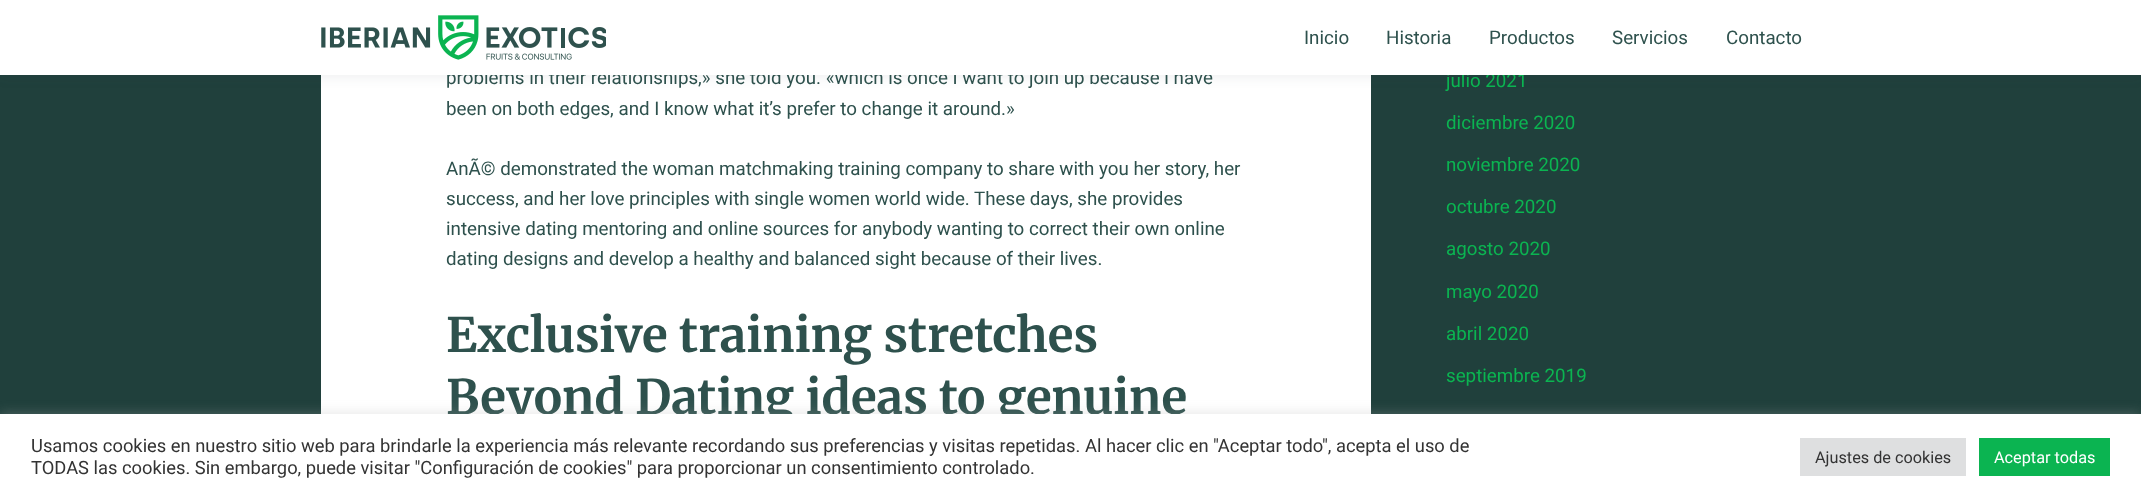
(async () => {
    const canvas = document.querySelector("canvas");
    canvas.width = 2141;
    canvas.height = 500;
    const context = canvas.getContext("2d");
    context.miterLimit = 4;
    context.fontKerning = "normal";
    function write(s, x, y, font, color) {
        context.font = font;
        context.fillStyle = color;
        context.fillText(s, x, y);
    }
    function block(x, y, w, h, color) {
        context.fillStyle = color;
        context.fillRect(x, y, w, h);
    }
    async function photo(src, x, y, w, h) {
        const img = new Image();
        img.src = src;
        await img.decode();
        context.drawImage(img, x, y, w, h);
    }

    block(0, 0, 2141, 500, "rgb(32, 64, 60)");
    block(321, 75, 1050, 339, "rgb(255, 255, 255)");
    context.fillStyle = "rgba(36, 50, 66, 0.07)";
    context.filter = "blur(6px)";
    context.beginPath();
    context.rect(0, 3, 2141, 75);
    context.fill();
    context.filter = "none";
    write("problems in their relationships,» she told you. «which is once I want to join up because i have", 446, 84, "18.75px Roboto", "rgb(46, 81, 77)");
    write("julio 2021", 1446, 87, "18.75px Roboto", "rgb(11, 180, 81)");
    block(0, 0, 2141, 75, "rgb(255, 255, 255)");
    await photo("media/1.png", 321, 15, 285, 45);
    write("Inicio", 1304, 44, "18.75px Roboto", "rgb(46, 81, 77)");
    write("Historia", 1386, 44, "18.75px Roboto", "rgb(46, 81, 77)");
    write("Productos", 1489, 44, "18.75px Roboto", "rgb(46, 81, 77)");
    write("Servicios", 1612, 44, "18.75px Roboto", "rgb(46, 81, 77)");
    write("Contacto", 1726, 44, "18.75px Roboto", "rgb(46, 81, 77)");
    write("been on both edges, and I know what it’s prefer to change it around.»", 446, 115, "18.75px Roboto", "rgb(46, 81, 77)");
    write("AnÃ© demonstrated the woman matchmaking training company to share with you her story, her", 446, 175, "18.75px Roboto", "rgb(46, 81, 77)");
    write("success, and her love principles with single women world wide. These days, she provides", 446, 205, "18.75px Roboto", "rgb(46, 81, 77)");
    write("intensive dating mentoring and online sources for anybody wanting to correct their own online", 446, 235, "18.75px Roboto", "rgb(46, 81, 77)");
    write("dating designs and develop a healthy and balanced sight because of their lives.", 446, 265, "18.75px Roboto", "rgb(46, 81, 77)");
    write("Exclusive training stretches", 446, 352, "300 47.5px Merriweather", "rgb(46, 81, 77)");
    write("Beyond Dating ideas to genuine", 446, 414, "300 47.5px Merriweather", "rgb(46, 81, 77)");
    write("diciembre 2020", 1446, 129, "18.75px Roboto", "rgb(11, 180, 81)");
    write("noviembre 2020", 1446, 171, "18.75px Roboto", "rgb(11, 180, 81)");
    write("octubre 2020", 1446, 213, "18.75px Roboto", "rgb(11, 180, 81)");
    write("agosto 2020", 1446, 255, "18.75px Roboto", "rgb(11, 180, 81)");
    write("mayo 2020", 1446, 298, "18.75px Roboto", "rgb(11, 180, 81)");
    write("abril 2020", 1446, 340, "18.75px Roboto", "rgb(11, 180, 81)");
    write("septiembre 2019", 1446, 382, "18.75px Roboto", "rgb(11, 180, 81)");
    context.fillStyle = "rgba(172, 171, 171, 0.3)";
    context.filter = "blur(6px)";
    context.beginPath();
    context.rect(0, 413, 2141, 86);
    context.fill();
    context.filter = "none";
    block(0, 414, 2141, 86, "rgb(255, 255, 255)");
    write("Usamos cookies en nuestro sitio web para brindarle la experiencia más relevante recordando sus preferencias y visitas repetidas. Al hacer clic en \"Aceptar todo\", acepta el uso de", 31, 452, "18.33px Roboto", "rgb(51, 51, 51)");
    write("TODAS las cookies. Sin embargo, puede visitar \"Configuración de cookies\" para proporcionar un consentimiento controlado.", 31, 474, "18.33px Roboto", "rgb(51, 51, 51)");
    block(1800, 438, 166, 38, "rgb(222, 223, 224)");
    write("Ajustes de cookies", 1815, 463, "16.25px Roboto", "rgb(51, 51, 51)");
    block(1979, 438, 131, 38, "rgb(11, 180, 81)");
    write("Aceptar todas", 1994, 463, "16.25px Roboto", "rgb(255, 255, 255)");
})();
